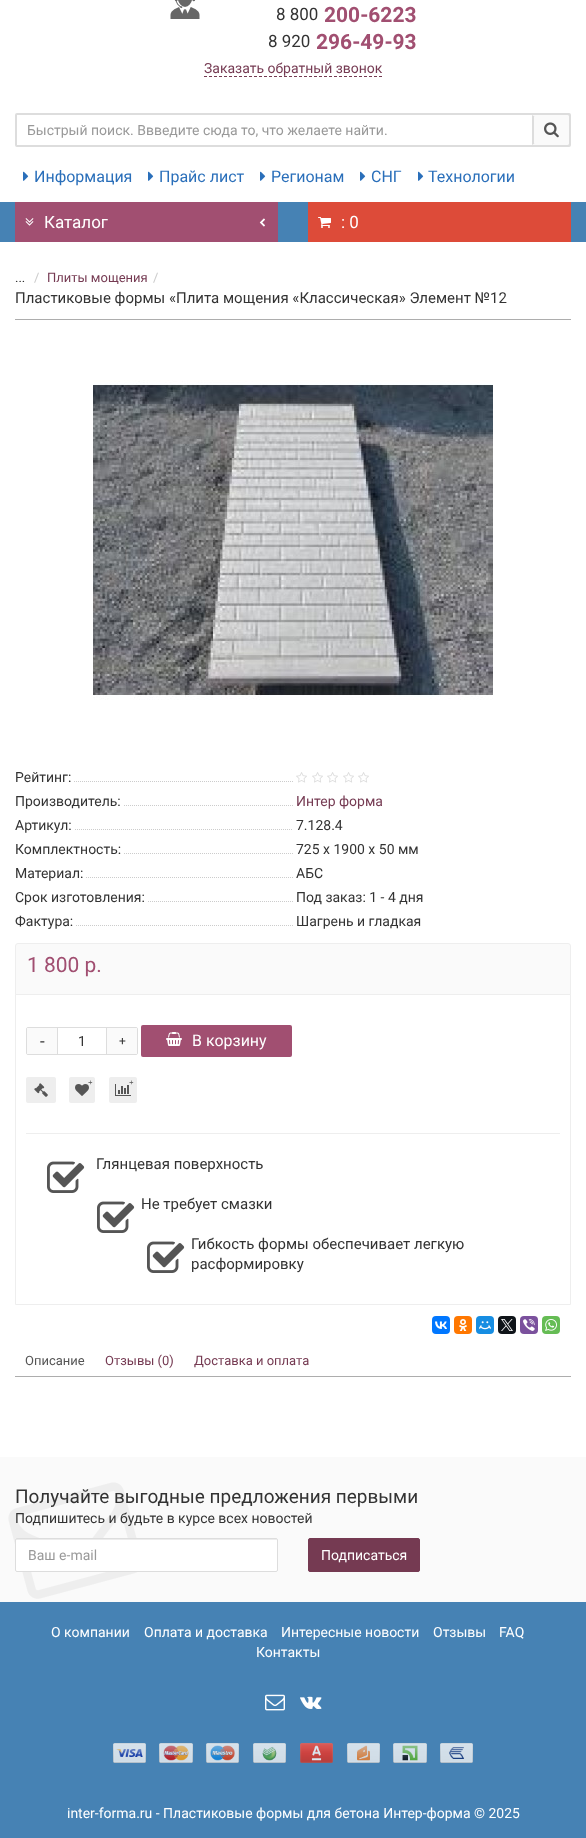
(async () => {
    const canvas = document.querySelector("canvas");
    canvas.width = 586;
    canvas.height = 1838;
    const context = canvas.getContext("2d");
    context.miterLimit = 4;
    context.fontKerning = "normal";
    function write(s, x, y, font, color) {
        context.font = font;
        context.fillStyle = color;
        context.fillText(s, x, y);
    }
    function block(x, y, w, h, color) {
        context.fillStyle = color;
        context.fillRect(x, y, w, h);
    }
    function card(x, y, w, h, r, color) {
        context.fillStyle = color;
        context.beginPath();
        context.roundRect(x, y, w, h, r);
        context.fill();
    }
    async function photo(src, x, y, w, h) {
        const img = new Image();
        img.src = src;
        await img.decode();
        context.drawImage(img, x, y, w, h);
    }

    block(0, 0, 586, 1838, "rgb(255, 255, 255)");
    await photo("media/1.png", 170, 0, 30, 19);
    write("8 800", 276, 20, "17px Roboto", "rgb(51, 51, 51)");
    write("200-6223", 324, 22, "bold 21px Roboto", "rgb(161, 79, 113)");
    write("8 920", 268, 47, "17px Roboto", "rgb(51, 51, 51)");
    write("296-49-93", 316, 49, "bold 21px Roboto", "rgb(161, 79, 113)");
    write("Заказать обратный звонок", 204, 73, "14px Roboto", "rgb(117, 58, 82)");
    context.beginPath();
    context.moveTo(204, 76.5);
    context.lineTo(382, 76.5);
    context.strokeStyle = "rgb(117, 58, 82)";
    context.setLineDash([3, 2]);
    context.stroke();
    context.fillStyle = "rgb(221, 221, 221)";
    context.beginPath();
    context.roundRect(16, 114, 554, 32, 1);
    context.fill();
    context.strokeStyle = "rgb(221, 221, 221)";
    context.lineWidth = 2;
    context.setLineDash([]);
    context.stroke();
    block(17, 115, 515, 30, "rgb(255, 255, 255)");
    write("Быстрый поиск. Ввведите сюда то, что желаете найти.", 27, 135, "14px Roboto", "rgb(153, 153, 153)");
    card(532, 115, 37, 30, 2, "rgb(250, 250, 250)");
    block(532, 116, 3, 28, "rgb(221, 221, 221)");
    card(534, 115, 35, 30, 2, "rgb(250, 250, 250)");
    await photo("media/2.png", 544, 122, 15, 16);
    await photo("media/3.png", 23, 171, 6, 10);
    write("Информация", 34, 182, "16px Roboto", "rgb(42, 111, 186)");
    await photo("media/4.png", 148, 171, 6, 10);
    write("Прайс лист", 159, 182, "16px Roboto", "rgb(42, 111, 186)");
    await photo("media/4.png", 260, 171, 6, 10);
    write("Регионам", 271, 182, "16px Roboto", "rgb(42, 111, 186)");
    await photo("media/4.png", 360, 171, 6, 10);
    write("СНГ", 371, 182, "16px Roboto", "rgb(42, 111, 186)");
    await photo("media/4.png", 418, 171, 6, 10);
    write("Технологии", 428, 182, "16px Roboto", "rgb(42, 111, 186)");
    block(0, 202, 586, 40, "rgb(70, 130, 180)");
    block(15, 202, 263, 40, "rgb(161, 79, 113)");
    await photo("media/5.png", 25, 218, 9, 8);
    write("Каталог", 44, 228, "17px Roboto", "rgb(255, 255, 255)");
    await photo("media/6.png", 259, 218, 6, 9);
    block(308, 202, 263, 40, "rgb(221, 75, 57)");
    await photo("media/7.png", 318, 217, 13, 11);
    write(": 0", 341, 228, "17px Roboto", "rgb(255, 255, 255)");
    block(15, 319, 556, 1, "rgb(173, 173, 173)");
    write("/", 153, 282, "13px Roboto", "rgb(204, 204, 204)");
    write("Пластиковые формы «Плита мощения «Классическая» Элемент №12", 15, 303, "15px Roboto", "rgb(51, 51, 51)");
    write("...", 15, 282, "13px Roboto", "rgb(51, 51, 51)");
    write("/", 34, 282, "13px Roboto", "rgb(204, 204, 204)");
    write("Плиты мощения", 47, 282, "13px Roboto", "rgb(117, 58, 82)");
    await photo("media/8.png", 93, 380, 400, 320);
    write("Рейтинг:", 15, 782, "14px Roboto", "rgb(51, 51, 51)");
    context.save();
    context.beginPath();
    context.rect(15, 765, 278, 24);
    context.clip();
    context.beginPath();
    context.moveTo(74, 781.5);
    context.lineTo(352, 781.5);
    context.strokeStyle = "rgb(204, 204, 204)";
    context.lineWidth = 1;
    context.setLineDash([1, 1]);
    context.stroke();
    context.restore();
    await photo("media/9.png", 296, 772, 11, 11);
    await photo("media/9.png", 312, 772, 11, 11);
    await photo("media/9.png", 327, 772, 11, 11);
    await photo("media/9.png", 343, 772, 11, 11);
    await photo("media/9.png", 358, 772, 11, 11);
    write("Производитель:", 15, 806, "14px Roboto", "rgb(51, 51, 51)");
    context.save();
    context.beginPath();
    context.rect(15, 789, 278, 24);
    context.clip();
    context.beginPath();
    context.moveTo(124, 805.5);
    context.lineTo(402, 805.5);
    context.strokeStyle = "rgb(204, 204, 204)";
    context.lineWidth = 1;
    context.setLineDash([1, 1]);
    context.stroke();
    context.restore();
    write("Интер форма", 296, 806, "14px Roboto", "rgb(117, 58, 82)");
    write("Артикул:", 15, 830, "14px Roboto", "rgb(51, 51, 51)");
    context.save();
    context.beginPath();
    context.rect(15, 813, 278, 24);
    context.clip();
    context.beginPath();
    context.moveTo(75, 829.5);
    context.lineTo(353, 829.5);
    context.strokeStyle = "rgb(204, 204, 204)";
    context.lineWidth = 1;
    context.setLineDash([1, 1]);
    context.stroke();
    context.restore();
    write("7.128.4", 296, 830, "14px Roboto", "rgb(51, 51, 51)");
    write("Комплектность:", 15, 854, "14px Roboto", "rgb(51, 51, 51)");
    context.save();
    context.beginPath();
    context.rect(15, 837, 278, 24);
    context.clip();
    context.beginPath();
    context.moveTo(124, 853.5);
    context.lineTo(402, 853.5);
    context.strokeStyle = "rgb(204, 204, 204)";
    context.lineWidth = 1;
    context.setLineDash([1, 1]);
    context.stroke();
    context.restore();
    write("725 х 1900 х 50 мм", 296, 854, "14px Roboto", "rgb(51, 51, 51)");
    write("Материал:", 15, 878, "14px Roboto", "rgb(51, 51, 51)");
    context.save();
    context.beginPath();
    context.rect(15, 861, 278, 24);
    context.clip();
    context.beginPath();
    context.moveTo(86, 877.5);
    context.lineTo(364, 877.5);
    context.strokeStyle = "rgb(204, 204, 204)";
    context.lineWidth = 1;
    context.setLineDash([1, 1]);
    context.stroke();
    context.restore();
    write("АБС", 296, 878, "14px Roboto", "rgb(51, 51, 51)");
    write("Срок изготовления:", 15, 902, "14px Roboto", "rgb(51, 51, 51)");
    context.save();
    context.beginPath();
    context.rect(15, 885, 278, 24);
    context.clip();
    context.beginPath();
    context.moveTo(148, 901.5);
    context.lineTo(426, 901.5);
    context.strokeStyle = "rgb(204, 204, 204)";
    context.lineWidth = 1;
    context.setLineDash([1, 1]);
    context.stroke();
    context.restore();
    write("Под заказ: 1 - 4 дня", 296, 902, "14px Roboto", "rgb(51, 51, 51)");
    write("Фактура:", 15, 926, "14px Roboto", "rgb(51, 51, 51)");
    context.save();
    context.beginPath();
    context.rect(15, 909, 278, 24);
    context.clip();
    context.beginPath();
    context.moveTo(76, 925.5);
    context.lineTo(354, 925.5);
    context.strokeStyle = "rgb(204, 204, 204)";
    context.lineWidth = 1;
    context.setLineDash([1, 1]);
    context.stroke();
    context.restore();
    write("Шагрень и гладкая", 296, 926, "14px Roboto", "rgb(51, 51, 51)");
    context.fillStyle = "rgb(250, 250, 250)";
    context.beginPath();
    context.roundRect(15.5, 943.5, 555, 361, 2.5);
    context.fill();
    context.strokeStyle = "rgb(238, 238, 238)";
    context.lineWidth = 1;
    context.stroke();
    write("1 800 р.", 27, 972, "21px Roboto", "rgb(161, 79, 113)");
    context.fillStyle = "rgb(255, 255, 255)";
    context.beginPath();
    context.rect(15.5, 994.5, 555, 310);
    context.fill();
    context.stroke();
    context.beginPath();
    context.roundRect(26.5, 1027.5, 111, 27, 1.5);
    context.strokeStyle = "rgb(221, 221, 221)";
    context.stroke();
    block(106, 1028, 1, 26, "rgb(221, 221, 221)");
    block(57, 1028, 1, 26, "rgb(221, 221, 221)");
    write("1", 78, 1046, "14px Roboto", "rgb(51, 51, 51)");
    block(27, 1028, 30, 26, "rgb(250, 250, 250)");
    write("-", 40, 1047, "17px Roboto", "rgb(51, 51, 51)");
    block(107, 1028, 30, 26, "rgb(250, 250, 250)");
    write("+", 119, 1045, "12px Roboto", "rgb(51, 51, 51)");
    card(141, 1025, 151, 32, 2, "rgb(161, 79, 113)");
    await photo("media/10.png", 166, 1032, 16, 14);
    write("В корзину", 192, 1046, "16px Roboto", "rgb(255, 255, 255)");
    context.fillStyle = "rgb(238, 238, 238)";
    context.beginPath();
    context.roundRect(27, 1078, 28, 24, 1);
    context.fill();
    context.strokeStyle = "rgb(238, 238, 238)";
    context.lineWidth = 2;
    context.stroke();
    await photo("media/11.png", 34, 1083, 14, 14);
    context.beginPath();
    context.roundRect(70, 1078, 24, 24, 1);
    context.fill();
    context.stroke();
    await photo("media/12.png", 75, 1084, 14, 12);
    write("+", 88, 1085, "bold 8px Liberation Serif", "rgb(85, 85, 85)");
    context.fillStyle = "rgb(238, 238, 238)";
    context.beginPath();
    context.roundRect(110, 1078, 26, 24, 1);
    context.fill();
    context.stroke();
    await photo("media/13.png", 115, 1084, 16, 12);
    write("+", 129, 1085, "bold 8px Liberation Serif", "rgb(85, 85, 85)");
    block(26, 1133, 534, 1, "rgb(238, 238, 238)");
    await photo("media/14.png", 47, 1161, 38, 32);
    write("Глянцевая поверхность", 96, 1169, "15px Roboto", "rgb(51, 51, 51)");
    await photo("media/14.png", 97, 1201, 38, 32);
    write("Не требует смазки", 141, 1209, "15px Roboto", "rgb(51, 51, 51)");
    await photo("media/14.png", 147, 1241, 38, 32);
    write("Гибкость формы обеспечивает легкую", 191, 1249, "15px Roboto", "rgb(51, 51, 51)");
    write("расформировку", 191, 1269, "15px Roboto", "rgb(51, 51, 51)");
    card(432, 1316, 18, 18, 4, "rgb(0, 119, 255)");
    await photo("media/15.png", 435, 1321, 12, 8);
    card(454, 1316, 18, 18, 4, "rgb(255, 119, 0)");
    await photo("media/16.png", 459, 1319, 8, 12);
    card(476, 1316, 18, 18, 4, "rgb(22, 141, 226)");
    await photo("media/17.png", 479, 1321, 12, 9);
    card(498, 1316, 18, 18, 4, "rgb(15, 20, 25)");
    await photo("media/18.png", 501, 1319, 12, 12);
    card(520, 1316, 18, 18, 4, "rgb(123, 81, 157)");
    await photo("media/19.png", 523, 1319, 12, 12);
    card(542, 1316, 18, 18, 4, "rgb(101, 188, 84)");
    await photo("media/20.png", 545, 1319, 12, 12);
    block(15, 1376, 556, 1, "rgb(173, 173, 173)");
    write("Описание", 25, 1365, "13px Roboto", "rgb(85, 85, 85)");
    write("Отзывы (0)", 105, 1365, "13px Roboto", "rgb(117, 58, 82)");
    write("Доставка и оплата", 194, 1365, "13px Roboto", "rgb(117, 58, 82)");
    block(0, 1457, 586, 145, "rgb(250, 250, 250)");
    await photo("media/21.png", 8, 1482, 130, 117);
    write("Получайте выгодные предложения первыми", 15, 1503, "19px Roboto", "rgb(51, 51, 51)");
    write("Подпишитесь и будьте в курсе всех новостей", 15, 1523, "14px Roboto", "rgb(51, 51, 51)");
    card(15, 1538, 263, 34, 2, "rgb(255, 255, 255)");
    context.fillStyle = "rgb(236, 236, 236)";
    context.beginPath();
    context.moveTo(17, 1540);
    context.lineTo(276, 1540);
    context.bezierCurveTo(277, 1540, 277, 1540, 277, 1541);
    context.bezierCurveTo(277, 1540, 277, 1539, 276, 1539);
    context.lineTo(16, 1539);
    context.lineTo(16, 1541);
    context.bezierCurveTo(16, 1540, 16, 1540, 17, 1540);
    context.closePath();
    context.fill();
    context.beginPath();
    context.roundRect(15.5, 1538.5, 262, 33, 1.5);
    context.strokeStyle = "rgb(221, 221, 221)";
    context.lineWidth = 1;
    context.stroke();
    write("Ваш e-mail", 28, 1560, "14px Roboto", "rgb(153, 153, 153)");
    context.fillStyle = "rgb(117, 58, 82)";
    context.beginPath();
    context.roundRect(308.5, 1538.5, 111, 33, 1.5);
    context.fill();
    context.strokeStyle = "rgb(117, 58, 82)";
    context.stroke();
    write("Подписаться", 321, 1560, "14px Roboto", "rgb(255, 255, 255)");
    block(0, 1602, 586, 236, "rgb(70, 130, 180)");
    write("О компании", 51, 1637, "14px Roboto", "rgb(255, 255, 255)");
    write("Оплата и доставка", 144, 1637, "14px Roboto", "rgb(255, 255, 255)");
    write("Интересные новости", 281, 1637, "14px Roboto", "rgb(255, 255, 255)");
    write("Отзывы", 433, 1637, "14px Roboto", "rgb(255, 255, 255)");
    write("FAQ", 499, 1637, "14px Roboto", "rgb(255, 255, 255)");
    write("Контакты", 256, 1657, "14px Roboto", "rgb(255, 255, 255)");
    await photo("media/22.png", 265, 1694, 20, 17);
    await photo("media/23.png", 300, 1696, 22, 13);
    await photo("media/24.png", 113, 1743, 33, 20);
    await photo("media/25.png", 159, 1743, 34, 20);
    await photo("media/26.png", 206, 1743, 33, 20);
    await photo("media/27.png", 253, 1743, 33, 20);
    await photo("media/28.png", 300, 1743, 33, 20);
    await photo("media/29.png", 347, 1743, 33, 20);
    await photo("media/30.png", 393, 1743, 34, 20);
    await photo("media/31.png", 440, 1743, 33, 20);
    write("inter-forma.ru - Пластиковые формы для бетона Интер-форма © 2025", 67, 1818, "14px Roboto", "rgb(255, 255, 255)");
})();
